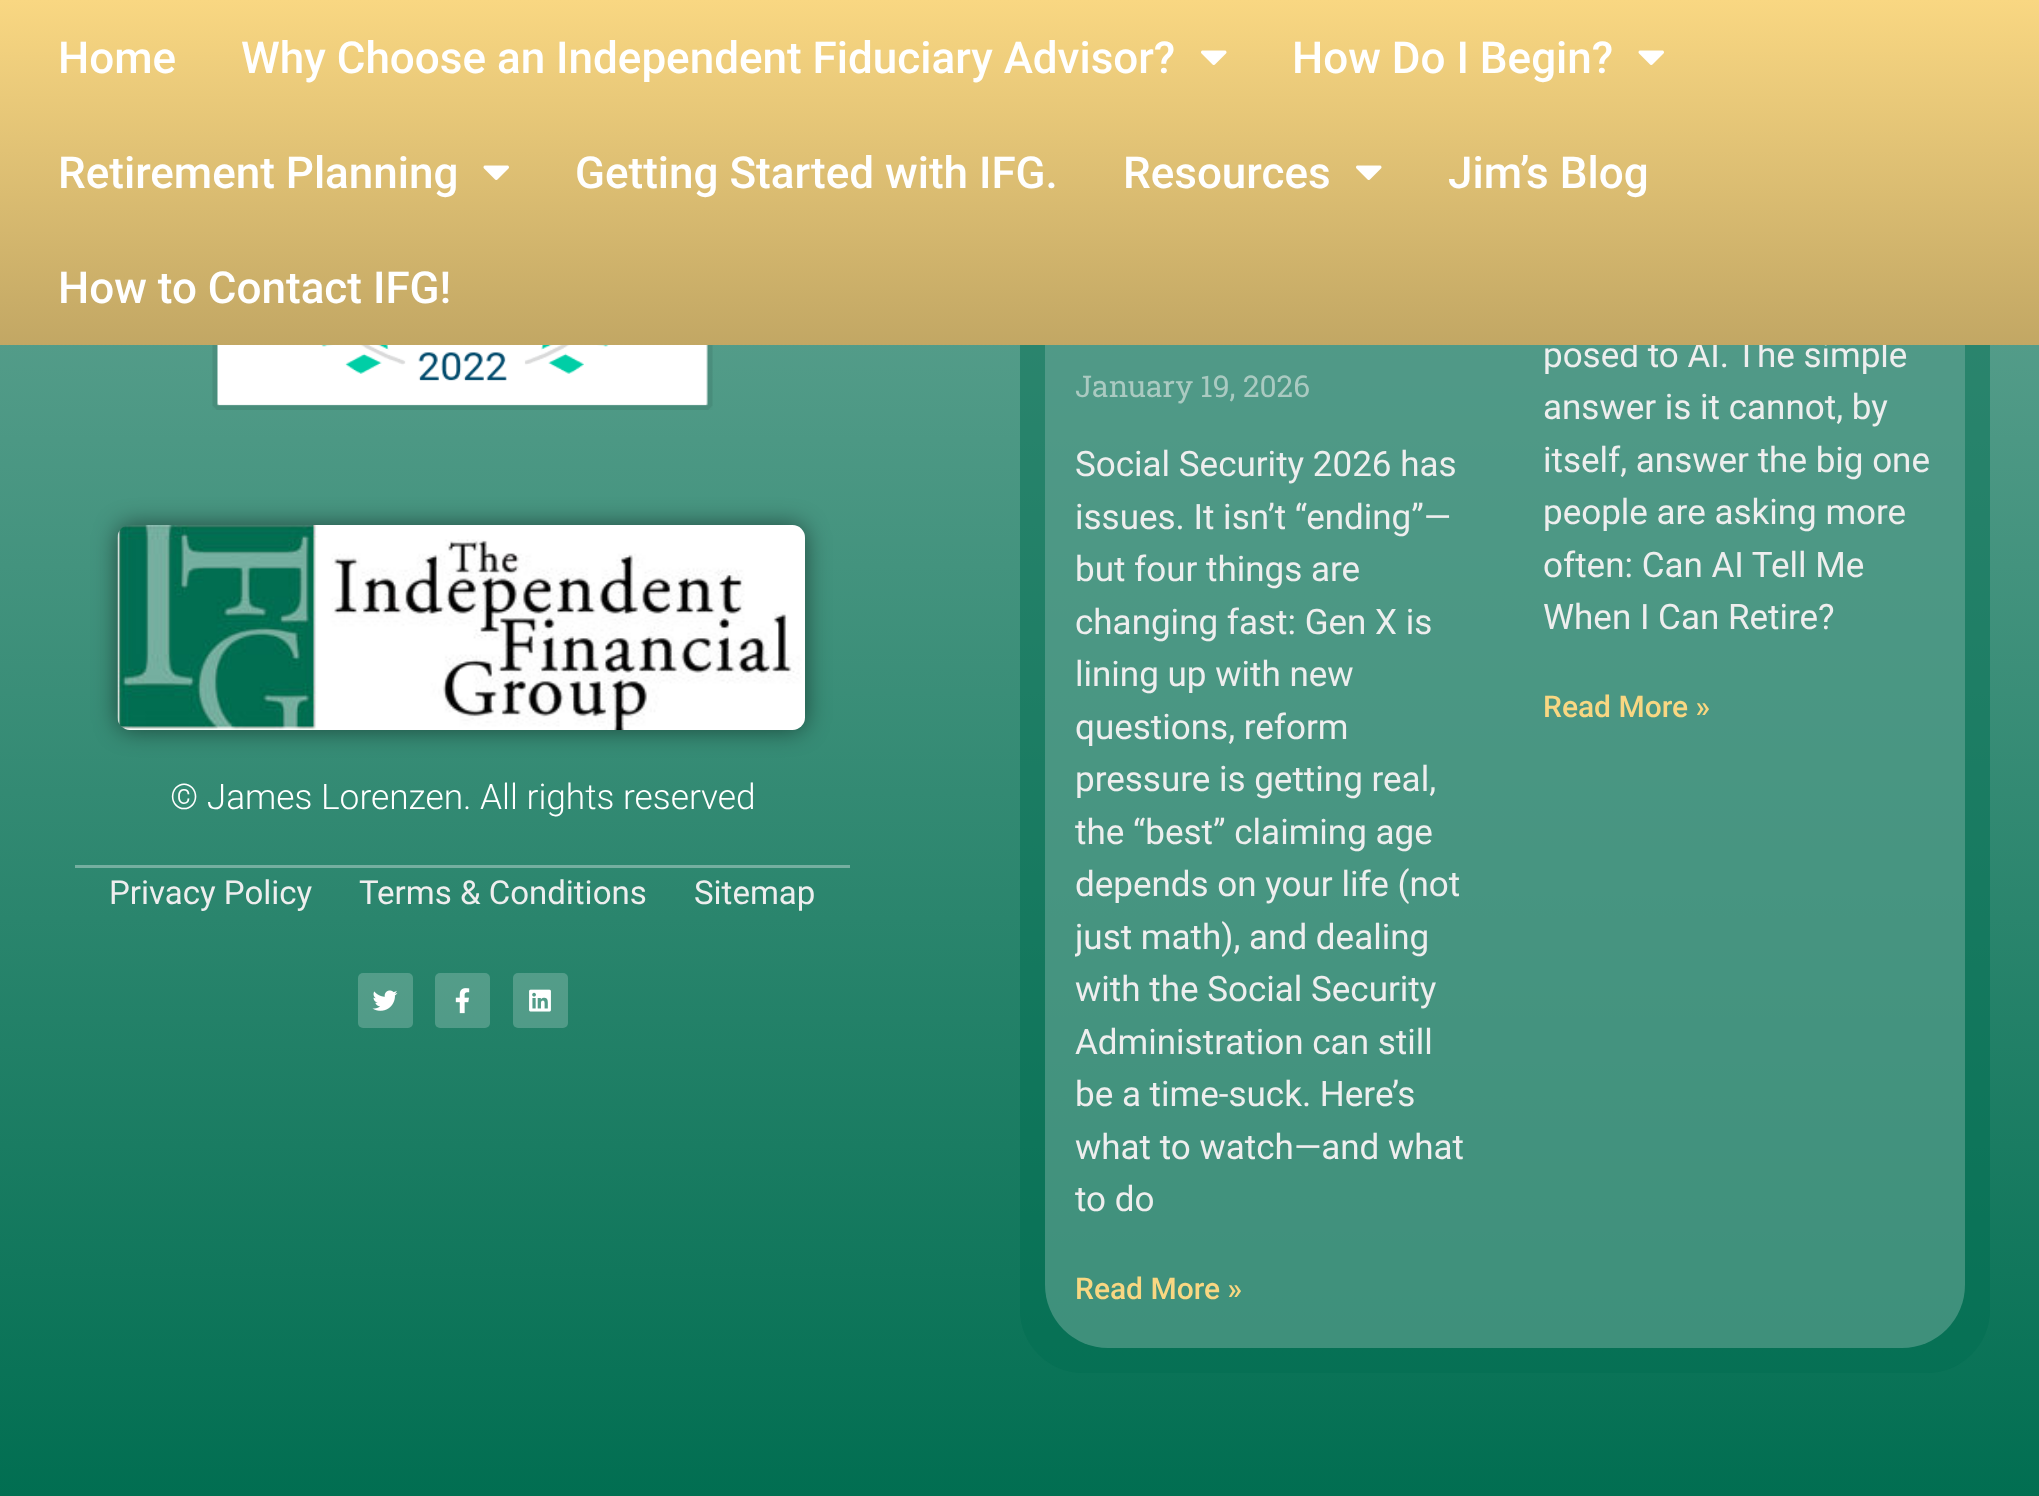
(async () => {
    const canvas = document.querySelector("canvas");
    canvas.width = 2039;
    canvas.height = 1496;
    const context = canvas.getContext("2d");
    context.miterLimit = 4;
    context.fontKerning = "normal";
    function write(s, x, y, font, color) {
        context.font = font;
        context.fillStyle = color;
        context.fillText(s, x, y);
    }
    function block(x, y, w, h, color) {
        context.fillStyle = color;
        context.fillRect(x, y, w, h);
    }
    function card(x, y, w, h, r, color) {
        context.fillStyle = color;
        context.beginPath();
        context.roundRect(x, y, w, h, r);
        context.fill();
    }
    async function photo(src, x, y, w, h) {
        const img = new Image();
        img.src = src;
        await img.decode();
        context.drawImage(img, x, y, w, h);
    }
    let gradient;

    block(0, 0, 2039, 1496, "rgb(255, 255, 255)");
    gradient = context.createLinearGradient(1020, -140, 1020, 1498);
    gradient.addColorStop(0, "rgb(117, 175, 160)");
    gradient.addColorStop(1, "rgb(1, 110, 81)");
    context.fillStyle = gradient;
    context.fillRect(0, 345, 2039, 1151);
    card(1020, -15, 970, 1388, 63, "rgba(1, 110, 81, 0.5)");
    card(1045, 68, 920, 1280, 63, "rgba(117, 175, 160, 0.51)");
    write("posed to AI.", 1543, 367, "35px Roboto", "rgb(238, 238, 238)");
    write("The simple", 1736, 367, "35px Roboto", "rgb(238, 238, 238)");
    gradient = context.createLinearGradient(1020, 0, 1020, 345);
    gradient.addColorStop(0, "rgb(249, 215, 130)");
    gradient.addColorStop(1, "rgb(194, 167, 100)");
    context.fillStyle = gradient;
    context.fillRect(0, 0, 2039, 345);
    write("Home", 58, 73, "500 44px Roboto", "rgb(255, 255, 255)");
    write("Why Choose an Independent Fiduciary Advisor?", 241, 73, "500 44px Roboto", "rgb(255, 255, 255)");
    await photo("media/1.png", 1201, 50, 26, 15);
    write("How Do I Begin?", 1292, 73, "500 44px Roboto", "rgb(255, 255, 255)");
    await photo("media/2.png", 1638, 50, 26, 15);
    write("Retirement Planning", 58, 188, "500 44px Roboto", "rgb(255, 255, 255)");
    await photo("media/3.png", 483, 165, 26, 15);
    write("Getting Started with IFG.", 575, 188, "500 44px Roboto", "rgb(255, 255, 255)");
    write("Resources", 1123, 188, "500 44px Roboto", "rgb(255, 255, 255)");
    await photo("media/4.png", 1356, 165, 26, 15);
    write("Jim’s Blog", 1448, 188, "500 44px Roboto", "rgb(255, 255, 255)");
    write("How to Contact IFG!", 58, 303, "500 44px Roboto", "rgb(255, 255, 255)");
    await photo("media/5.png", 212, 345, 501, 65);
    context.fillStyle = "rgba(0, 0, 0, 0.5)";
    context.filter = "blur(12.5px)";
    context.beginPath();
    context.roundRect(118, 525, 687, 205, 13);
    context.fill();
    context.filter = "none";
    await photo("media/6.png", 117, 525, 688, 205);
    write("© James Lorenzen. All rights reserved", 170, 809, "300 35.25px Roboto", "rgb(255, 255, 255)");
    block(75, 865, 775, 3, "rgb(117, 175, 160)");
    write("Privacy Policy", 109, 904, "33px Roboto", "rgb(238, 238, 238)");
    write("Terms & Conditions", 359, 904, "33px Roboto", "rgb(238, 238, 238)");
    write("Sitemap", 694, 904, "33px Roboto", "rgb(238, 238, 238)");
    card(358, 973, 55, 55, 5, "rgba(255, 255, 255, 0.21)");
    await photo("media/7.png", 372, 990, 26, 21);
    card(435, 973, 55, 55, 5, "rgba(255, 255, 255, 0.21)");
    await photo("media/8.png", 455, 988, 15, 26);
    card(513, 973, 55, 55, 5, "rgba(255, 255, 255, 0.21)");
    await photo("media/9.png", 529, 989, 22, 23);
    write("January 19, 2026", 1075, 397, "30px Roboto Slab", "rgb(170, 202, 193)");
    write("Social Security 2026 has", 1075, 476, "35px Roboto", "rgb(238, 238, 238)");
    write("issues. It isn’t “ending”—", 1075, 529, "35px Roboto", "rgb(238, 238, 238)");
    write("but four things are", 1075, 581, "35px Roboto", "rgb(238, 238, 238)");
    write("changing fast: Gen X is", 1075, 634, "35px Roboto", "rgb(238, 238, 238)");
    write("lining up with new", 1075, 686, "35px Roboto", "rgb(238, 238, 238)");
    write("questions, reform", 1075, 739, "35px Roboto", "rgb(238, 238, 238)");
    write("pressure is getting real,", 1075, 791, "35px Roboto", "rgb(238, 238, 238)");
    write("the “best” claiming age", 1075, 844, "35px Roboto", "rgb(238, 238, 238)");
    write("depends on your life (not", 1075, 896, "35px Roboto", "rgb(238, 238, 238)");
    context.save();
    context.beginPath();
    context.rect(1075, 98, 393, 1220);
    context.clip();
    write("just math), and dealing", 1075, 949, "35px Roboto", "rgb(238, 238, 238)");
    context.restore();
    write("with the Social Security", 1075, 1001, "35px Roboto", "rgb(238, 238, 238)");
    write("Administration can still", 1075, 1054, "35px Roboto", "rgb(238, 238, 238)");
    write("be a time-suck. Here’s", 1075, 1106, "35px Roboto", "rgb(238, 238, 238)");
    write("what to watch—and what", 1075, 1159, "35px Roboto", "rgb(238, 238, 238)");
    write("to do", 1075, 1211, "35px Roboto", "rgb(238, 238, 238)");
    write("Read More »", 1075, 1299, "500 30px Roboto", "rgb(249, 215, 130)");
    write("answer is it cannot, by", 1543, 419, "35px Roboto", "rgb(238, 238, 238)");
    write("itself, answer the big one", 1543, 472, "35px Roboto", "rgb(238, 238, 238)");
    write("people are asking more", 1543, 524, "35px Roboto", "rgb(238, 238, 238)");
    write("often: Can AI Tell Me", 1543, 577, "35px Roboto", "rgb(238, 238, 238)");
    write("When I Can Retire?", 1543, 629, "35px Roboto", "rgb(238, 238, 238)");
    write("Read More »", 1543, 717, "500 30px Roboto", "rgb(249, 215, 130)");
})();
